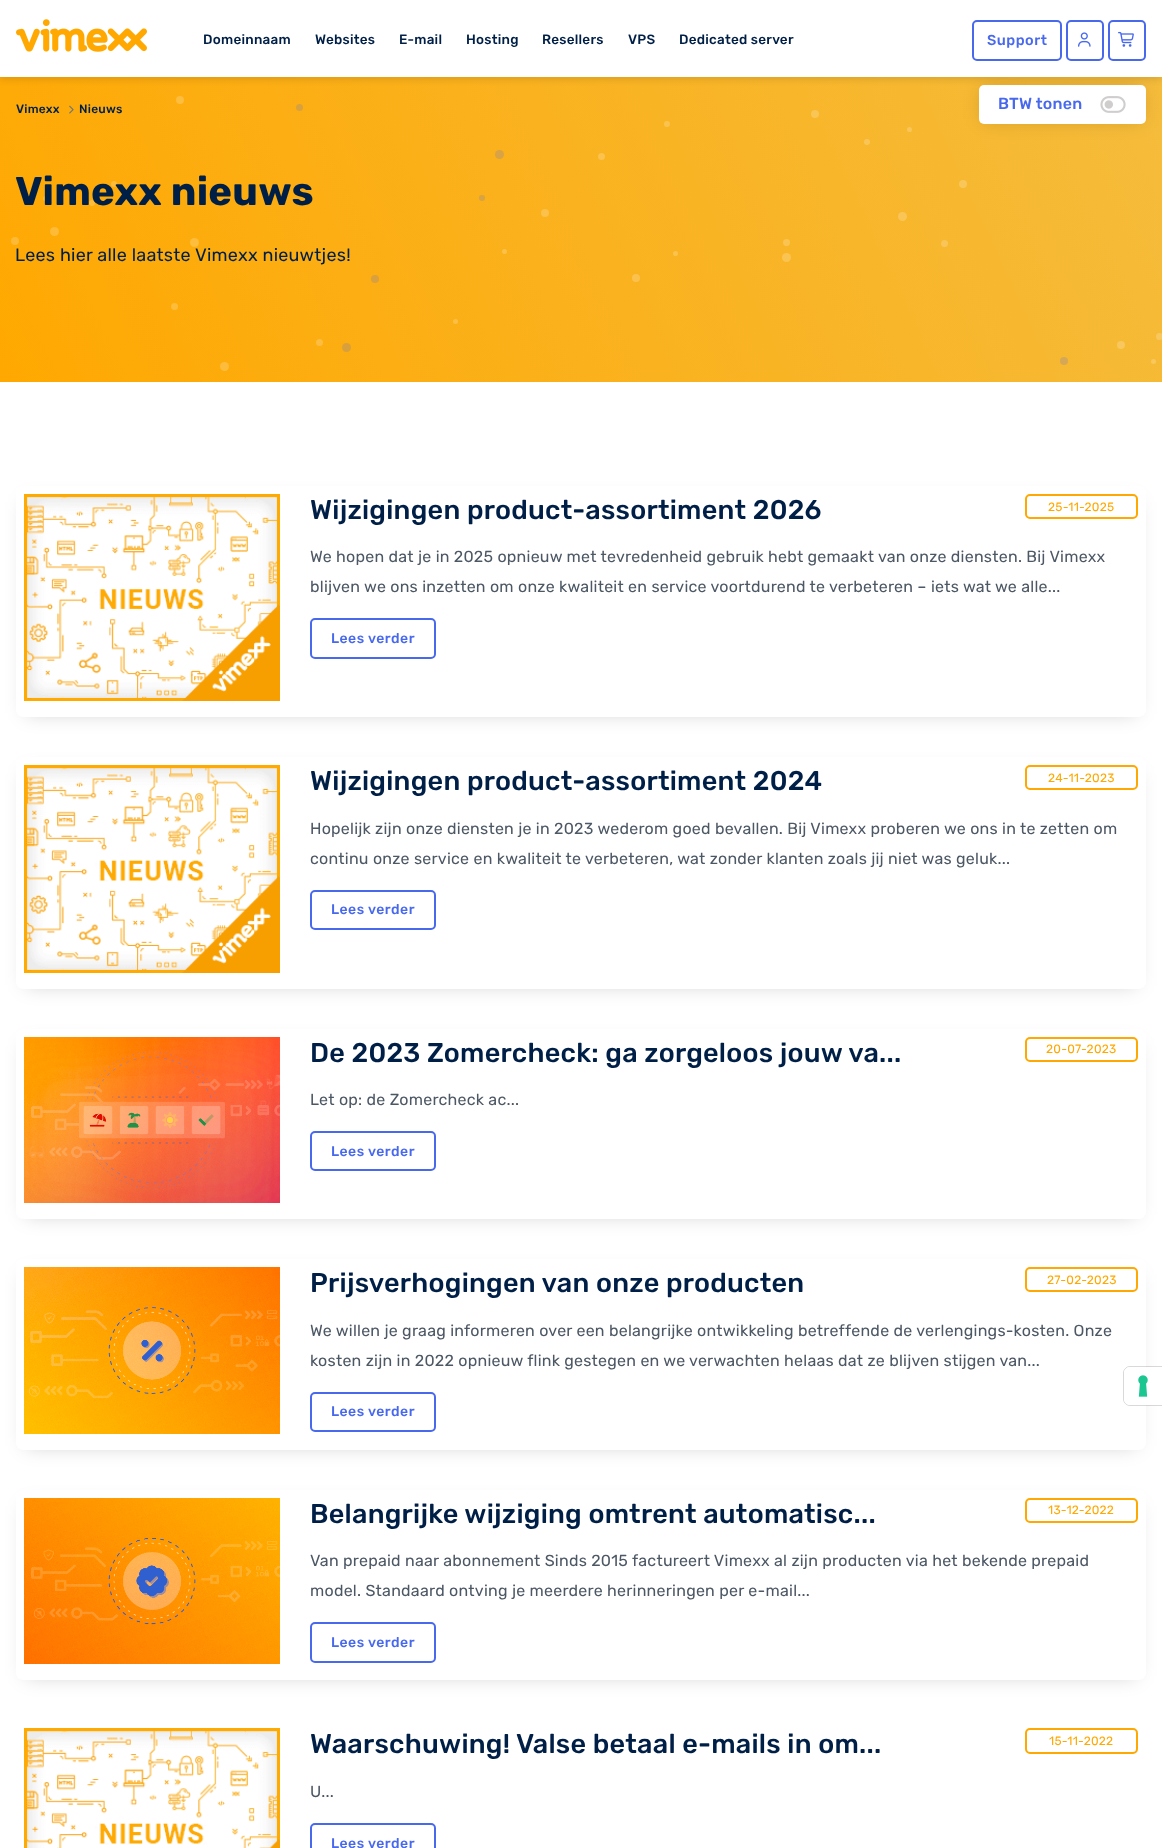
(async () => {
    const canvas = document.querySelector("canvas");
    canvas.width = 1162;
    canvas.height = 1848;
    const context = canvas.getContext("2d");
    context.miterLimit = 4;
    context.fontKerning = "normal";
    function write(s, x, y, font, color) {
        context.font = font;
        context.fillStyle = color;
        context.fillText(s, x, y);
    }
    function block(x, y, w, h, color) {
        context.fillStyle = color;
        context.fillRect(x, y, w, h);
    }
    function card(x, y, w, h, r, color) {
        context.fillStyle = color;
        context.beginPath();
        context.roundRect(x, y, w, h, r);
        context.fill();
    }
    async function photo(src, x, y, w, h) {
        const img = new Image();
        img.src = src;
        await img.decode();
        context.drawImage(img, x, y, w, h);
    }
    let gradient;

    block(0, 0, 1162, 1848, "rgb(255, 255, 255)");
    gradient = context.createLinearGradient(41, 471, 1121, -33);
    gradient.addColorStop(0, "rgb(255, 168, 1)");
    gradient.addColorStop(1, "rgb(245, 188, 60)");
    context.fillStyle = gradient;
    context.fillRect(0, 77, 1162, 305);
    context.fillStyle = "rgba(10, 5, 0, 0.2)";
    context.filter = "blur(10px)";
    context.beginPath();
    context.rect(984, 90, 157, 29);
    context.fill();
    context.filter = "none";
    card(979, 85, 167, 39, 5, "rgb(255, 255, 255)");
    context.fillStyle = "rgba(0, 0, 0, 0.1)";
    context.filter = "blur(3px)";
    context.beginPath();
    context.rect(0, 3, 1162, 77);
    context.fill();
    context.filter = "none";
    block(0, 0, 1162, 77, "rgb(255, 255, 255)");
    await photo("media/1.png", 16, 19, 131, 33);
    context.letterSpacing = "0.24px";
    write("Domeinnaam", 203, 44, "500 13.5px Rubik", "rgb(0, 31, 71)");
    write("Websites", 315, 44, "500 13.5px Rubik", "rgb(0, 31, 71)");
    write("E-mail", 399, 44, "500 13.5px Rubik", "rgb(0, 31, 71)");
    write("Hosting", 466, 44, "500 13.5px Rubik", "rgb(0, 31, 71)");
    write("Resellers", 542, 44, "500 13.5px Rubik", "rgb(0, 31, 71)");
    write("VPS", 628, 44, "500 13.5px Rubik", "rgb(0, 31, 71)");
    write("Dedicated server", 679, 44, "500 13.5px Rubik", "rgb(0, 31, 71)");
    context.beginPath();
    context.roundRect(973, 21, 88, 39, 4);
    context.strokeStyle = "rgb(73, 105, 237)";
    context.lineWidth = 2;
    context.stroke();
    context.letterSpacing = "0.5px";
    write("Support", 987, 45, "500 14.5px Rubik", "rgb(73, 105, 237)");
    context.beginPath();
    context.roundRect(1067, 21, 36, 39, 4);
    context.stroke();
    await photo("media/2.png", 1078, 32, 13, 15);
    context.beginPath();
    context.roundRect(1109, 21, 36, 39, 4);
    context.stroke();
    await photo("media/3.png", 1118, 31, 16, 16);
    context.letterSpacing = "0.24px";
    write("BTW tonen", 998, 109, "500 16px Rubik", "rgb(73, 105, 237)");
    await photo("media/4.png", 1100, 96, 26, 17);
    context.fillStyle = "rgb(253, 189, 63)";
    context.beginPath();
    context.arc(180, 100, 4, 0, Math.PI * 2);
    context.fill();
    write("Vimexx", 16, 113, "500 12px Rubik", "rgb(0, 31, 71)");
    await photo("media/5.png", 69, 105, 5, 9);
    write("Nieuws", 79, 113, "500 12px Rubik", "rgb(0, 31, 71)");
    context.fillStyle = "rgb(216, 161, 63)";
    context.beginPath();
    context.arc(299.5, 107.5, 3.5, 0, Math.PI * 2);
    context.fill();
    context.fillStyle = "rgb(249, 197, 85)";
    context.beginPath();
    context.arc(815, 114, 4, 0, Math.PI * 2);
    context.fill();
    context.fillStyle = "rgb(250, 195, 80)";
    context.beginPath();
    context.arc(667, 124, 3, 0, Math.PI * 2);
    context.fill();
    context.fillStyle = "rgb(249, 198, 89)";
    context.beginPath();
    context.arc(909.5, 129.5, 2.5, 0, Math.PI * 2);
    context.fill();
    context.fillStyle = "rgb(249, 197, 87)";
    context.beginPath();
    context.arc(867, 142, 3, 0, Math.PI * 2);
    context.fill();
    context.fillStyle = "rgb(215, 163, 70)";
    context.beginPath();
    context.arc(499.5, 154.5, 4.5, 0, Math.PI * 2);
    context.fill();
    context.fillStyle = "rgb(251, 194, 77)";
    context.beginPath();
    context.arc(601.5, 156.5, 3.5, 0, Math.PI * 2);
    context.fill();
    context.fillStyle = "rgb(253, 188, 59)";
    context.beginPath();
    context.arc(114, 184, 3, 0, Math.PI * 2);
    context.fill();
    context.fillStyle = "rgb(254, 187, 57)";
    context.beginPath();
    context.arc(45.5, 198.5, 2.5, 0, Math.PI * 2);
    context.fill();
    context.fillStyle = "rgb(254, 188, 58)";
    context.beginPath();
    context.arc(92, 203, 3, 0, Math.PI * 2);
    context.fill();
    write("Vimexx nieuws", 15, 205, "bold 40px Rubik", "rgb(0, 31, 71)");
    write("Lees hier alle laatste Vimexx nieuwtjes!", 15, 261, "18px Rubik", "rgb(0, 31, 71)");
    context.fillStyle = "rgb(249, 198, 89)";
    context.beginPath();
    context.arc(963, 184, 4, 0, Math.PI * 2);
    context.fill();
    context.fillStyle = "rgb(215, 163, 69)";
    context.beginPath();
    context.arc(482, 198, 3, 0, Math.PI * 2);
    context.fill();
    context.fillStyle = "rgb(251, 193, 74)";
    context.beginPath();
    context.arc(545, 213, 4, 0, Math.PI * 2);
    context.fill();
    context.fillStyle = "rgb(249, 197, 87)";
    context.beginPath();
    context.arc(902.5, 216.5, 4.5, 0, Math.PI * 2);
    context.fill();
    context.fillStyle = "rgb(254, 187, 56)";
    context.beginPath();
    context.arc(54.5, 231.5, 4.5, 0, Math.PI * 2);
    context.fill();
    context.fillStyle = "rgb(254, 186, 55)";
    context.beginPath();
    context.arc(15, 241, 4, 0, Math.PI * 2);
    context.fill();
    context.fillStyle = "rgb(253, 189, 61)";
    context.beginPath();
    context.arc(194.5, 242.5, 4.5, 0, Math.PI * 2);
    context.fill();
    context.fillStyle = "rgb(250, 196, 82)";
    context.beginPath();
    context.arc(786.5, 242.5, 3.5, 0, Math.PI * 2);
    context.fill();
    context.fillStyle = "rgb(249, 197, 88)";
    context.beginPath();
    context.arc(944.5, 243.5, 3.5, 0, Math.PI * 2);
    context.fill();
    context.fillStyle = "rgb(252, 193, 72)";
    context.beginPath();
    context.arc(504.5, 251.5, 2.5, 0, Math.PI * 2);
    context.fill();
    context.fillStyle = "rgb(250, 194, 78)";
    context.beginPath();
    context.arc(675.5, 253.5, 2.5, 0, Math.PI * 2);
    context.fill();
    context.fillStyle = "rgb(250, 196, 82)";
    context.beginPath();
    context.arc(786.5, 257.5, 4.5, 0, Math.PI * 2);
    context.fill();
    context.fillStyle = "rgb(216, 160, 63)";
    context.beginPath();
    context.arc(375, 279, 4, 0, Math.PI * 2);
    context.fill();
    context.fillStyle = "rgb(251, 193, 77)";
    context.beginPath();
    context.arc(636, 278, 4, 0, Math.PI * 2);
    context.fill();
    context.fillStyle = "rgb(253, 188, 59)";
    context.beginPath();
    context.arc(174.5, 306.5, 3.5, 0, Math.PI * 2);
    context.fill();
    context.fillStyle = "rgb(252, 191, 69)";
    context.beginPath();
    context.arc(455.5, 321.5, 2.5, 0, Math.PI * 2);
    context.fill();
    context.fillStyle = "rgb(248, 200, 94)";
    context.beginPath();
    context.arc(1159.5, 336.5, 3.5, 0, Math.PI * 2);
    context.fill();
    context.fillStyle = "rgb(253, 189, 64)";
    context.beginPath();
    context.arc(319.5, 342.5, 3.5, 0, Math.PI * 2);
    context.fill();
    context.fillStyle = "rgb(216, 160, 61)";
    context.beginPath();
    context.arc(346.5, 347.5, 4.5, 0, Math.PI * 2);
    context.fill();
    context.fillStyle = "rgb(248, 199, 93)";
    context.beginPath();
    context.arc(1121, 345, 4, 0, Math.PI * 2);
    context.fill();
    context.fillStyle = "rgb(212, 168, 87)";
    context.beginPath();
    context.arc(1064, 361, 4, 0, Math.PI * 2);
    context.fill();
    context.fillStyle = "rgb(248, 200, 93)";
    context.beginPath();
    context.arc(1153.5, 361.5, 2.5, 0, Math.PI * 2);
    context.fill();
    context.fillStyle = "rgb(253, 188, 60)";
    context.beginPath();
    context.arc(224.5, 366.5, 4.5, 0, Math.PI * 2);
    context.fill();
    context.save();
    context.beginPath();
    context.moveTo(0, 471);
    context.lineTo(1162, 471);
    context.lineTo(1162, 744);
    context.lineTo(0, 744);
    context.closePath();
    context.moveTo(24, 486);
    context.lineTo(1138, 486);
    context.bezierCurveTo(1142.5, 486, 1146, 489.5, 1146, 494);
    context.lineTo(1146, 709);
    context.bezierCurveTo(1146, 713.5, 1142.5, 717, 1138, 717);
    context.lineTo(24, 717);
    context.bezierCurveTo(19.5, 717, 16, 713.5, 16, 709);
    context.lineTo(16, 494);
    context.bezierCurveTo(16, 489.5, 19.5, 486, 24, 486);
    context.closePath();
    context.clip("evenodd");
    context.fillStyle = "rgba(0, 0, 0, 0.2)";
    context.filter = "blur(10px)";
    context.beginPath();
    context.rect(26, 502, 1110, 211);
    context.fill();
    context.filter = "none";
    context.restore();
    await photo("media/6.png", 24, 494, 256, 207);
    write("Wijzigingen product-assortiment 2026", 310, 519, "500 27px Rubik", "rgb(0, 31, 71)");
    context.beginPath();
    context.roundRect(1026, 495, 111, 23, 4);
    context.strokeStyle = "rgb(255, 168, 1)";
    context.stroke();
    write("25-11-2025", 1048, 511, "12px Rubik", "rgb(255, 168, 1)");
    write("We hopen dat je in 2025 opnieuw met tevredenheid gebruik hebt gemaakt van onze diensten. Bij Vimexx", 310, 562, "16px Rubik", "rgb(77, 88, 101)");
    write("blijven we ons inzetten om onze kwaliteit en service voortdurend te verbeteren – iets wat we alle...", 310, 592, "16px Rubik", "rgb(77, 88, 101)");
    context.beginPath();
    context.roundRect(311, 619, 124, 39, 4);
    context.strokeStyle = "rgb(73, 105, 237)";
    context.stroke();
    context.letterSpacing = "0.5px";
    write("Lees verder", 331, 643, "500 14px Rubik", "rgb(73, 105, 237)");
    context.save();
    context.beginPath();
    context.moveTo(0, 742);
    context.lineTo(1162, 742);
    context.lineTo(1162, 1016);
    context.lineTo(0, 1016);
    context.closePath();
    context.moveTo(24, 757);
    context.lineTo(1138, 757);
    context.bezierCurveTo(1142.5, 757, 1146, 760.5, 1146, 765);
    context.lineTo(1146, 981);
    context.bezierCurveTo(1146, 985.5, 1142.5, 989, 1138, 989);
    context.lineTo(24, 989);
    context.bezierCurveTo(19.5, 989, 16, 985.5, 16, 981);
    context.lineTo(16, 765);
    context.bezierCurveTo(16, 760.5, 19.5, 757, 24, 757);
    context.closePath();
    context.clip("evenodd");
    context.fillStyle = "rgba(0, 0, 0, 0.2)";
    context.filter = "blur(10px)";
    context.beginPath();
    context.rect(26, 773, 1110, 212);
    context.fill();
    context.filter = "none";
    context.restore();
    await photo("media/7.png", 24, 765, 256, 208);
    context.letterSpacing = "0.24px";
    write("Wijzigingen product-assortiment 2024", 310, 790, "500 27px Rubik", "rgb(0, 31, 71)");
    context.beginPath();
    context.roundRect(1026, 766, 111, 23, 4);
    context.strokeStyle = "rgb(255, 168, 1)";
    context.stroke();
    write("24-11-2023", 1048, 782, "12px Rubik", "rgb(255, 168, 1)");
    write("Hopelijk zijn onze diensten je in 2023 wederom goed bevallen. Bij Vimexx proberen we ons in te zetten om", 310, 834, "16px Rubik", "rgb(77, 88, 101)");
    write("continu onze service en kwaliteit te verbeteren, wat zonder klanten zoals jij niet was geluk...", 310, 864, "16px Rubik", "rgb(77, 88, 101)");
    context.beginPath();
    context.roundRect(311, 891, 124, 38, 4);
    context.strokeStyle = "rgb(73, 105, 237)";
    context.stroke();
    context.letterSpacing = "0.5px";
    write("Lees verder", 331, 914, "500 14px Rubik", "rgb(73, 105, 237)");
    context.save();
    context.beginPath();
    context.moveTo(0, 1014);
    context.lineTo(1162, 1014);
    context.lineTo(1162, 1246);
    context.lineTo(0, 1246);
    context.closePath();
    context.moveTo(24, 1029);
    context.lineTo(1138, 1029);
    context.bezierCurveTo(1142.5, 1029, 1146, 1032.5, 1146, 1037);
    context.lineTo(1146, 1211);
    context.bezierCurveTo(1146, 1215.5, 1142.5, 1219, 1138, 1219);
    context.lineTo(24, 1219);
    context.bezierCurveTo(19.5, 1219, 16, 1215.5, 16, 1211);
    context.lineTo(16, 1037);
    context.bezierCurveTo(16, 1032.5, 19.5, 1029, 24, 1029);
    context.closePath();
    context.clip("evenodd");
    context.fillStyle = "rgba(0, 0, 0, 0.2)";
    context.filter = "blur(10px)";
    context.beginPath();
    context.rect(26, 1045, 1110, 170);
    context.fill();
    context.filter = "none";
    context.restore();
    await photo("media/8.png", 24, 1037, 256, 166);
    context.letterSpacing = "0.24px";
    write("De 2023 Zomercheck: ga zorgeloos jouw va...", 310, 1062, "500 27px Rubik", "rgb(0, 31, 71)");
    context.beginPath();
    context.roundRect(1026, 1038, 111, 23, 4);
    context.strokeStyle = "rgb(255, 168, 1)";
    context.stroke();
    write("20-07-2023", 1046, 1053, "12px Rubik", "rgb(255, 168, 1)");
    write("Let op: de Zomercheck ac...", 310, 1105, "16px Rubik", "rgb(77, 88, 101)");
    context.beginPath();
    context.roundRect(311, 1132, 124, 38, 4);
    context.strokeStyle = "rgb(73, 105, 237)";
    context.stroke();
    context.letterSpacing = "0.5px";
    write("Lees verder", 331, 1156, "500 14px Rubik", "rgb(73, 105, 237)");
    context.save();
    context.beginPath();
    context.moveTo(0, 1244);
    context.lineTo(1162, 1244);
    context.lineTo(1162, 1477);
    context.lineTo(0, 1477);
    context.closePath();
    context.moveTo(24, 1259);
    context.lineTo(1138, 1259);
    context.bezierCurveTo(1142.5, 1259, 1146, 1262.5, 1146, 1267);
    context.lineTo(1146, 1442);
    context.bezierCurveTo(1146, 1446.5, 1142.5, 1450, 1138, 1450);
    context.lineTo(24, 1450);
    context.bezierCurveTo(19.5, 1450, 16, 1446.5, 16, 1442);
    context.lineTo(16, 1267);
    context.bezierCurveTo(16, 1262.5, 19.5, 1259, 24, 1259);
    context.closePath();
    context.clip("evenodd");
    context.fillStyle = "rgba(0, 0, 0, 0.2)";
    context.filter = "blur(10px)";
    context.beginPath();
    context.rect(26, 1275, 1110, 171);
    context.fill();
    context.filter = "none";
    context.restore();
    await photo("media/9.png", 24, 1267, 256, 167);
    context.letterSpacing = "0.24px";
    write("Prijsverhogingen van onze producten", 310, 1292, "500 27px Rubik", "rgb(0, 31, 71)");
    context.beginPath();
    context.roundRect(1026, 1268, 111, 23, 4);
    context.strokeStyle = "rgb(255, 168, 1)";
    context.stroke();
    write("27-02-2023", 1047, 1284, "12px Rubik", "rgb(255, 168, 1)");
    write("We willen je graag informeren over een belangrijke ontwikkeling betreffende de verlengings-kosten. Onze", 310, 1336, "16px Rubik", "rgb(77, 88, 101)");
    write("kosten zijn in 2022 opnieuw flink gestegen en we verwachten helaas dat ze blijven stijgen van...", 310, 1366, "16px Rubik", "rgb(77, 88, 101)");
    context.beginPath();
    context.roundRect(311, 1393, 124, 38, 4);
    context.strokeStyle = "rgb(73, 105, 237)";
    context.stroke();
    context.letterSpacing = "0.5px";
    write("Lees verder", 331, 1416, "500 14px Rubik", "rgb(73, 105, 237)");
    context.save();
    context.beginPath();
    context.moveTo(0, 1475);
    context.lineTo(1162, 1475);
    context.lineTo(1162, 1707);
    context.lineTo(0, 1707);
    context.closePath();
    context.moveTo(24, 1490);
    context.lineTo(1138, 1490);
    context.bezierCurveTo(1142.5, 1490, 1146, 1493.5, 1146, 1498);
    context.lineTo(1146, 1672);
    context.bezierCurveTo(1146, 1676.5, 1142.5, 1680, 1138, 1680);
    context.lineTo(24, 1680);
    context.bezierCurveTo(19.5, 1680, 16, 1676.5, 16, 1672);
    context.lineTo(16, 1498);
    context.bezierCurveTo(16, 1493.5, 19.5, 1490, 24, 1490);
    context.closePath();
    context.clip("evenodd");
    context.fillStyle = "rgba(0, 0, 0, 0.2)";
    context.filter = "blur(10px)";
    context.beginPath();
    context.rect(26, 1506, 1110, 170);
    context.fill();
    context.filter = "none";
    context.restore();
    await photo("media/10.png", 24, 1498, 256, 166);
    context.letterSpacing = "0.24px";
    write("Belangrijke wijziging omtrent automatisc...", 310, 1523, "500 27px Rubik", "rgb(0, 31, 71)");
    context.beginPath();
    context.roundRect(1026, 1499, 111, 23, 4);
    context.strokeStyle = "rgb(255, 168, 1)";
    context.stroke();
    write("13-12-2022", 1048, 1514, "12px Rubik", "rgb(255, 168, 1)");
    write("Van prepaid naar abonnement Sinds 2015 factureert Vimexx al zijn producten via het bekende prepaid", 310, 1566, "16px Rubik", "rgb(77, 88, 101)");
    write("model. Standaard ontving je meerdere herinneringen per e-mail...", 310, 1596, "16px Rubik", "rgb(77, 88, 101)");
    context.beginPath();
    context.roundRect(311, 1623, 124, 39, 4);
    context.strokeStyle = "rgb(73, 105, 237)";
    context.stroke();
    context.letterSpacing = "0.5px";
    write("Lees verder", 331, 1647, "500 14px Rubik", "rgb(73, 105, 237)");
    await photo("media/11.png", 24, 1728, 256, 120);
    context.letterSpacing = "0.24px";
    write("Waarschuwing! Valse betaal e-mails in om...", 310, 1753, "500 27px Rubik", "rgb(0, 31, 71)");
    context.beginPath();
    context.roundRect(1026, 1729, 111, 24, 4);
    context.strokeStyle = "rgb(255, 168, 1)";
    context.stroke();
    write("15-11-2022", 1049, 1745, "12px Rubik", "rgb(255, 168, 1)");
    write("U...", 310, 1797, "16px Rubik", "rgb(77, 88, 101)");
    context.beginPath();
    context.roundRect(311, 1824, 124, 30, 4);
    context.strokeStyle = "rgb(73, 105, 237)";
    context.stroke();
    context.letterSpacing = "0.5px";
    write("Lees verder", 331, 1848, "500 14px Rubik", "rgb(73, 105, 237)");
    context.beginPath();
    context.moveTo(1130, 1366.5);
    context.lineTo(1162.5, 1366.5);
    context.lineTo(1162.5, 1405.5);
    context.lineTo(1130, 1405.5);
    context.bezierCurveTo(1126.5, 1405.5, 1123.5, 1402.5, 1123.5, 1399);
    context.lineTo(1123.5, 1373);
    context.bezierCurveTo(1123.5, 1369.5, 1126.5, 1366.5, 1130, 1366.5);
    context.closePath();
    context.strokeStyle = "rgba(0, 0, 0, 0.15)";
    context.lineWidth = 1;
    context.stroke();
    context.fillStyle = "rgb(255, 255, 255)";
    context.beginPath();
    context.roundRect(1124, 1367, 38, 38, [6, 0, 0, 6]);
    context.fill();
    await photo("media/12.png", 1138, 1375, 10, 22);
})();
